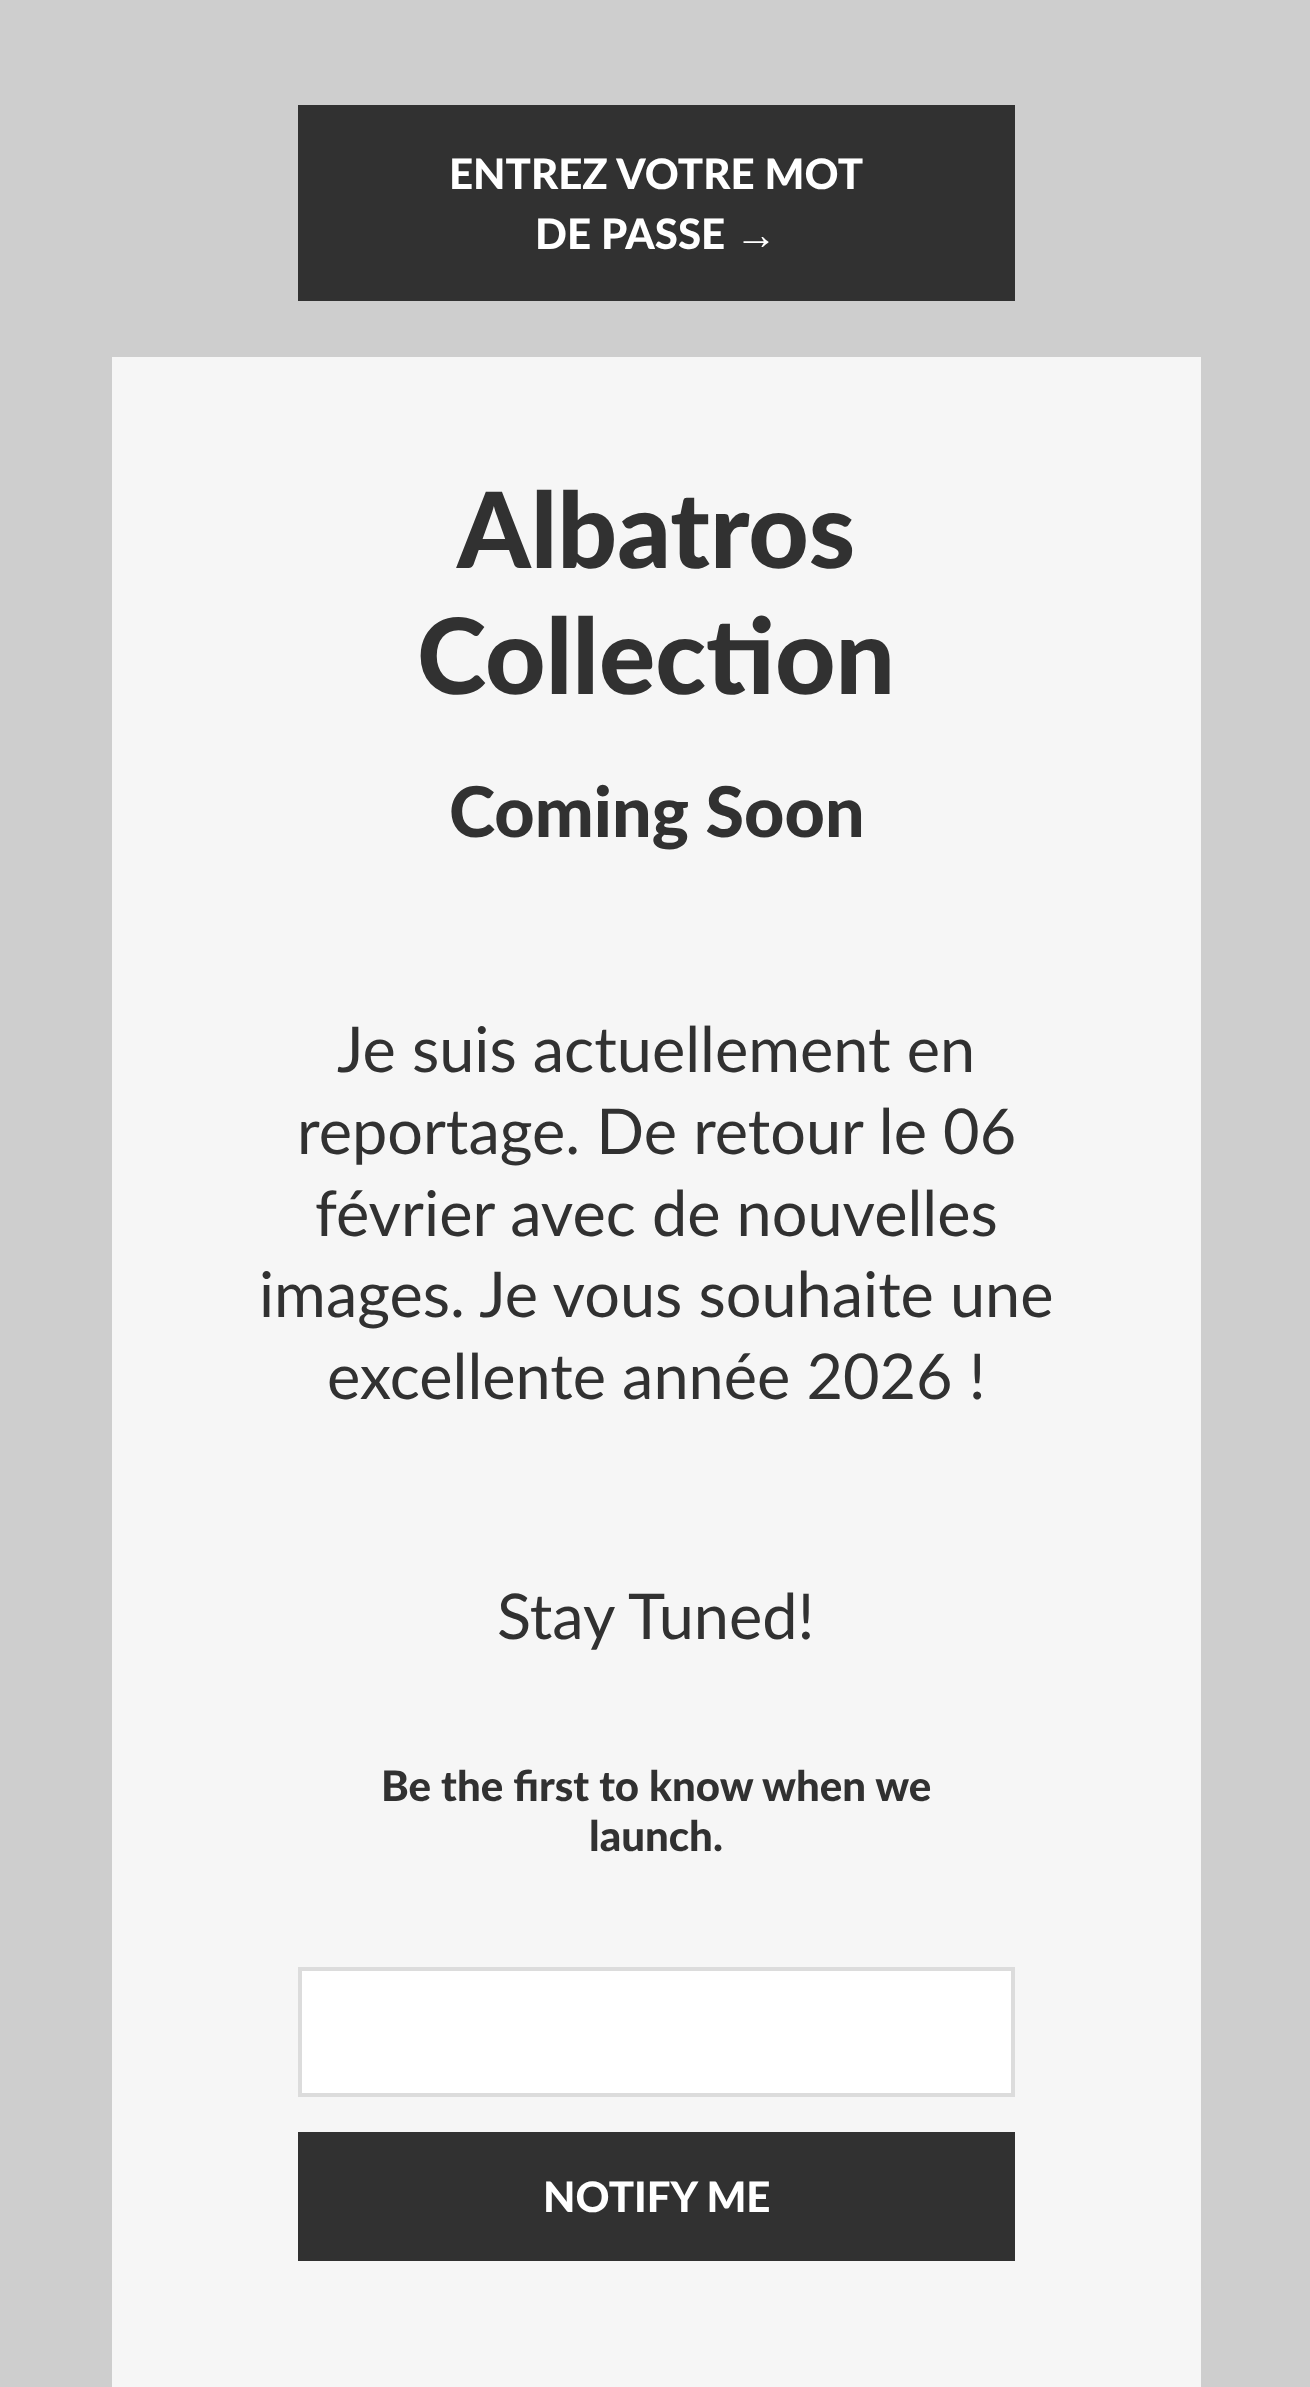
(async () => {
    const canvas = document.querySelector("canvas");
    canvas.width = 1310;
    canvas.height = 2387;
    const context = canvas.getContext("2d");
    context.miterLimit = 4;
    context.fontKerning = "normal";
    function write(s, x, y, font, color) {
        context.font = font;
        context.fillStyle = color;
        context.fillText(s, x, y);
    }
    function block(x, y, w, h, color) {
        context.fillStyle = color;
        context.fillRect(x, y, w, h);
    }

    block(0, 0, 1310, 2387, "rgb(206, 206, 206)");
    block(298, 105, 717, 196, "rgb(49, 49, 49)");
    write("ENTREZ VOTRE MOT", 449, 189, "900 42px Lato", "rgb(255, 255, 255)");
    write("DE PASSE", 535, 249, "900 42px Lato", "rgb(255, 255, 255)");
    write("→", 735, 249, "bold 42px Liberation Sans", "rgb(255, 255, 255)");
    block(112, 357, 1089, 2030, "rgb(246, 246, 246)");
    write("Albatros", 457, 568, "900 105px Lato", "rgb(49, 49, 49)");
    write("Collection", 417, 694, "900 105px Lato", "rgb(49, 49, 49)");
    write("Coming Soon", 449, 837, "900 70px Lato", "rgb(49, 49, 49)");
    write("Je suis actuellement en", 337, 1072, "63px Lato", "rgb(49, 49, 49)");
    write("reportage. De retour le 06", 297, 1154, "63px Lato", "rgb(49, 49, 49)");
    write("février avec de nouvelles", 315, 1236, "63px Lato", "rgb(49, 49, 49)");
    write("images. Je vous souhaite une", 259, 1317, "63px Lato", "rgb(49, 49, 49)");
    write("excellente année 2026 !", 327, 1399, "63px Lato", "rgb(49, 49, 49)");
    write("Stay Tuned!", 497, 1639, "63px Lato", "rgb(49, 49, 49)");
    write("Be the first to know when we", 381, 1801, "900 42px Lato", "rgb(49, 49, 49)");
    write("launch.", 589, 1851, "900 42px Lato", "rgb(49, 49, 49)");
    context.fillStyle = "rgb(255, 255, 255)";
    context.beginPath();
    context.rect(300, 1969, 713, 126);
    context.fill();
    context.strokeStyle = "rgb(220, 220, 220)";
    context.lineWidth = 4;
    context.stroke();
    block(298, 2132, 717, 129, "rgb(49, 49, 49)");
    write("NOTIFY ME", 543, 2212, "900 42px Lato", "rgb(255, 255, 255)");
})();
